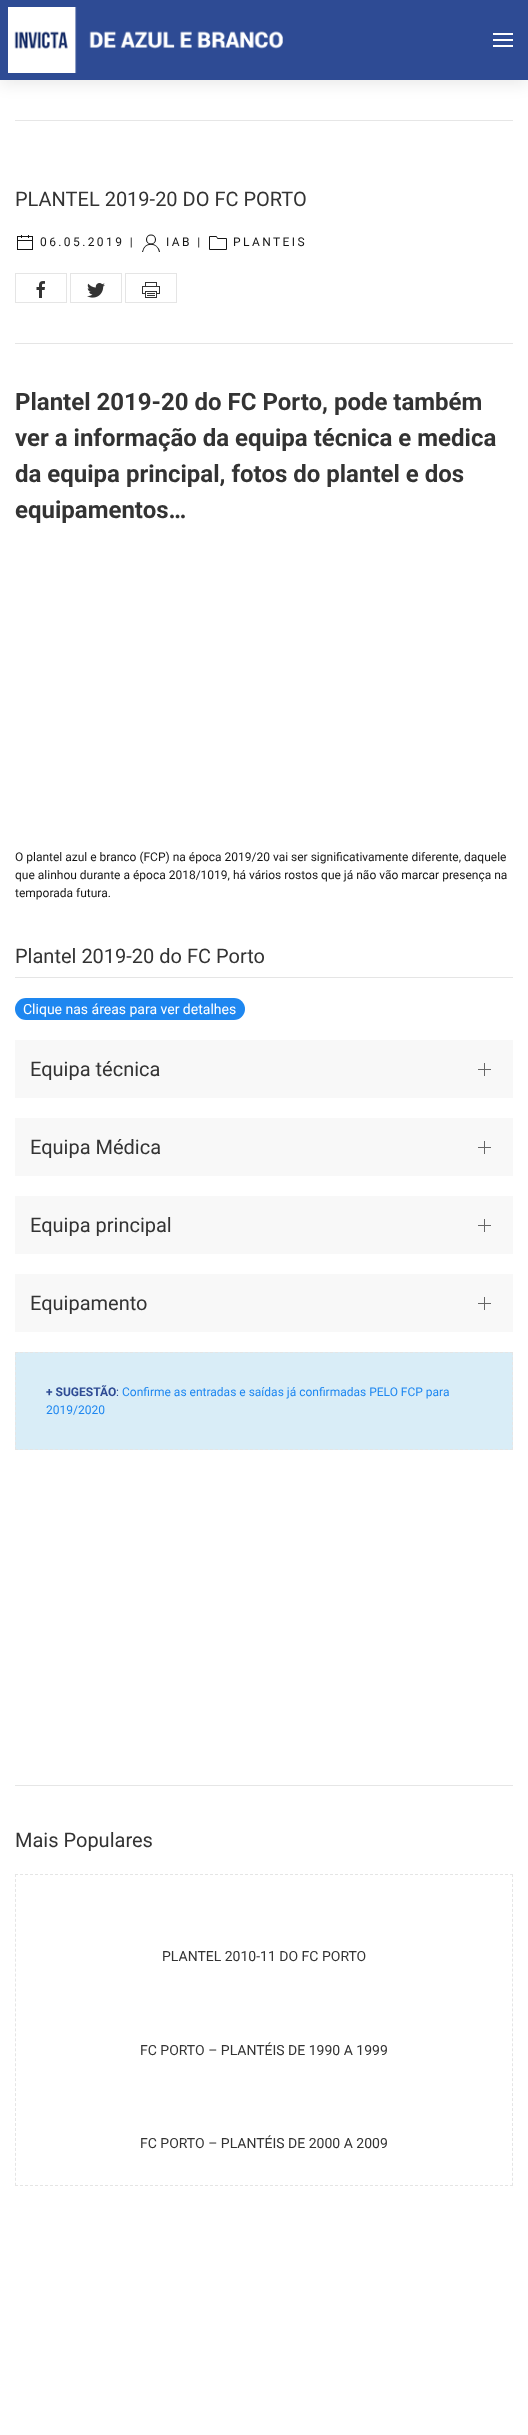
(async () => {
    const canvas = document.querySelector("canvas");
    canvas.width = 528;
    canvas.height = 2435;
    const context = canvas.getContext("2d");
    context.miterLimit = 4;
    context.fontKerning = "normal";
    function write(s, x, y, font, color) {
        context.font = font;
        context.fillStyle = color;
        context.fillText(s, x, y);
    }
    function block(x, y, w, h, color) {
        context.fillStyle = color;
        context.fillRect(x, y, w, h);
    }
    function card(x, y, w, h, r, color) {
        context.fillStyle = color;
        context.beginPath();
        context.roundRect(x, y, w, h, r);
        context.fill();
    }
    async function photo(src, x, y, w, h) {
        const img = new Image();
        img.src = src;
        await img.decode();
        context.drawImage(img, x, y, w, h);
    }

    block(0, 0, 528, 2435, "rgb(255, 255, 255)");
    context.fillStyle = "rgba(0, 0, 0, 0.08)";
    context.filter = "blur(7.5px)";
    context.beginPath();
    context.rect(0, 5, 528, 80);
    context.fill();
    context.filter = "none";
    block(0, 0, 528, 80, "rgb(46, 75, 148)");
    await photo("media/1.png", 8, 7, 275, 66);
    block(493, 33, 20, 2, "rgb(255, 255, 255)");
    block(493, 39, 20, 2, "rgb(255, 255, 255)");
    block(493, 45, 20, 2, "rgb(255, 255, 255)");
    block(15, 120, 498, 1, "rgb(230, 230, 230)");
    block(15, 1785, 498, 1, "rgb(230, 230, 230)");
    write("PLANTEL 2019-20 DO FC PORTO", 15, 206, "20px Roboto", "rgb(51, 51, 51)");
    await photo("media/2.png", 17, 235, 16, 15);
    context.letterSpacing = "2.4px";
    write("06.05.2019 |", 40, 246, "12px Roboto", "rgb(21, 21, 21)");
    context.beginPath();
    context.arc(151, 239.5, 4.5, 0, Math.PI * 2);
    context.strokeStyle = "rgb(21, 21, 21)";
    context.lineWidth = 1.1;
    context.stroke();
    context.beginPath();
    context.moveTo(142.5, 252);
    context.bezierCurveTo(144.5, 241.5, 157.5, 242, 159.5, 252);
    context.stroke();
    write("IAB |", 166, 246, "12px Roboto", "rgb(21, 21, 21)");
    context.beginPath();
    context.moveTo(217.5, 238.5);
    context.lineTo(216.5, 236.5);
    context.lineTo(209.5, 236.5);
    context.lineTo(209.5, 249.5);
    context.lineTo(226.5, 249.5);
    context.lineTo(226.5, 238.5);
    context.closePath();
    context.lineWidth = 1;
    context.stroke();
    write("PLANTEIS", 233, 246, "12px Roboto", "rgb(21, 21, 21)");
    context.strokeStyle = "rgb(229, 229, 229)";
    context.strokeRect(15.5, 273.5, 51, 29);
    await photo("media/3.png", 36, 281, 9, 17);
    context.strokeRect(70.5, 273.5, 51, 29);
    await photo("media/4.png", 87, 283, 18, 15);
    context.strokeRect(125.5, 273.5, 51, 29);
    await photo("media/5.png", 142, 282, 18, 16);
    block(15, 343, 498, 1, "rgb(229, 229, 229)");
    context.letterSpacing = "0px";
    write("Plantel 2019-20 do FC Porto, pode também", 15, 410, "bold 24px Roboto", "rgb(51, 51, 51)");
    write("ver a informação da equipa técnica e medica", 15, 446, "bold 24px Roboto", "rgb(51, 51, 51)");
    write("da equipa principal, fotos do plantel e dos", 15, 482, "bold 24px Roboto", "rgb(51, 51, 51)");
    write("equipamentos…", 15, 518, "bold 24px Roboto", "rgb(51, 51, 51)");
    write("O plantel azul e branco (FCP) na época 2019/20 vai ser significativamente diferente, daquele", 15, 861, "12px Roboto", "rgb(21, 21, 21)");
    write("que alinhou durante a época 2018/1019, há vários rostos que já não vão marcar presença na", 15, 879, "12px Roboto", "rgb(21, 21, 21)");
    write("temporada futura.", 15, 897, "12px Roboto", "rgb(21, 21, 21)");
    block(15, 977, 498, 1, "rgb(229, 229, 229)");
    write("Plantel 2019-20 do FC Porto", 15, 963, "20px Roboto", "rgb(51, 51, 51)");
    card(15, 998, 230, 22, 11, "rgb(30, 135, 240)");
    write("Clique nas áreas para ver detalhes", 23, 1014, "14px Roboto", "rgb(255, 255, 255)");
    block(15, 1040, 498, 58, "rgb(248, 248, 248)");
    write("Equipa técnica", 30, 1076, "20px Roboto", "rgb(51, 51, 51)");
    block(478, 1069, 13, 1, "rgb(102, 102, 102)");
    block(484, 1063, 1, 13, "rgb(102, 102, 102)");
    block(15, 1118, 498, 58, "rgb(248, 248, 248)");
    write("Equipa Médica", 30, 1154, "20px Roboto", "rgb(51, 51, 51)");
    block(478, 1147, 13, 1, "rgb(102, 102, 102)");
    block(484, 1141, 1, 13, "rgb(102, 102, 102)");
    block(15, 1196, 498, 58, "rgb(248, 248, 248)");
    write("Equipa principal", 30, 1232, "20px Roboto", "rgb(51, 51, 51)");
    block(478, 1225, 13, 1, "rgb(102, 102, 102)");
    block(484, 1219, 1, 13, "rgb(102, 102, 102)");
    block(15, 1274, 498, 58, "rgb(248, 248, 248)");
    write("Equipamento", 30, 1310, "20px Roboto", "rgb(51, 51, 51)");
    block(478, 1303, 13, 1, "rgb(102, 102, 102)");
    block(484, 1297, 1, 13, "rgb(102, 102, 102)");
    block(15, 1352, 498, 98, "rgb(217, 237, 247)");
    context.beginPath();
    context.moveTo(15, 1352.5);
    context.lineTo(513, 1352.5);
    context.setLineDash([3, 2]);
    context.stroke();
    context.beginPath();
    context.moveTo(512.5, 1352);
    context.lineTo(512.5, 1450);
    context.stroke();
    context.beginPath();
    context.moveTo(15, 1449.5);
    context.lineTo(513, 1449.5);
    context.stroke();
    context.beginPath();
    context.moveTo(15.5, 1352);
    context.lineTo(15.5, 1450);
    context.stroke();
    write("+ SUGESTÃO", 46, 1396, "bold 12px Roboto", "rgb(46, 75, 148)");
    write(":", 116, 1396, "12px Roboto", "rgb(46, 75, 148)");
    write("Confirme as entradas e saídas já confirmadas PELO FCP para", 122, 1396, "12px Roboto", "rgb(30, 135, 240)");
    write("2019/2020", 46, 1414, "12px Roboto", "rgb(30, 135, 240)");
    write("Mais Populares", 15, 1847, "20px Roboto", "rgb(51, 51, 51)");
    context.beginPath();
    context.moveTo(15, 1874.5);
    context.lineTo(513, 1874.5);
    context.stroke();
    context.beginPath();
    context.moveTo(512.5, 1874);
    context.lineTo(512.5, 2186);
    context.setLineDash([3, 1.98]);
    context.stroke();
    context.beginPath();
    context.moveTo(15, 2185.5);
    context.lineTo(513, 2185.5);
    context.setLineDash([3, 2]);
    context.stroke();
    context.beginPath();
    context.moveTo(15.5, 1874);
    context.lineTo(15.5, 2186);
    context.setLineDash([3, 1.98]);
    context.stroke();
    write("PLANTEL 2010-11 DO FC PORTO", 162, 1961, "14px Roboto", "rgb(51, 51, 51)");
    write("FC PORTO – PLANTÉIS DE 1990 A 1999", 140, 2055, "14px Roboto", "rgb(51, 51, 51)");
    write("FC PORTO – PLANTÉIS DE 2000 A 2009", 140, 2148, "14px Roboto", "rgb(51, 51, 51)");
})();
